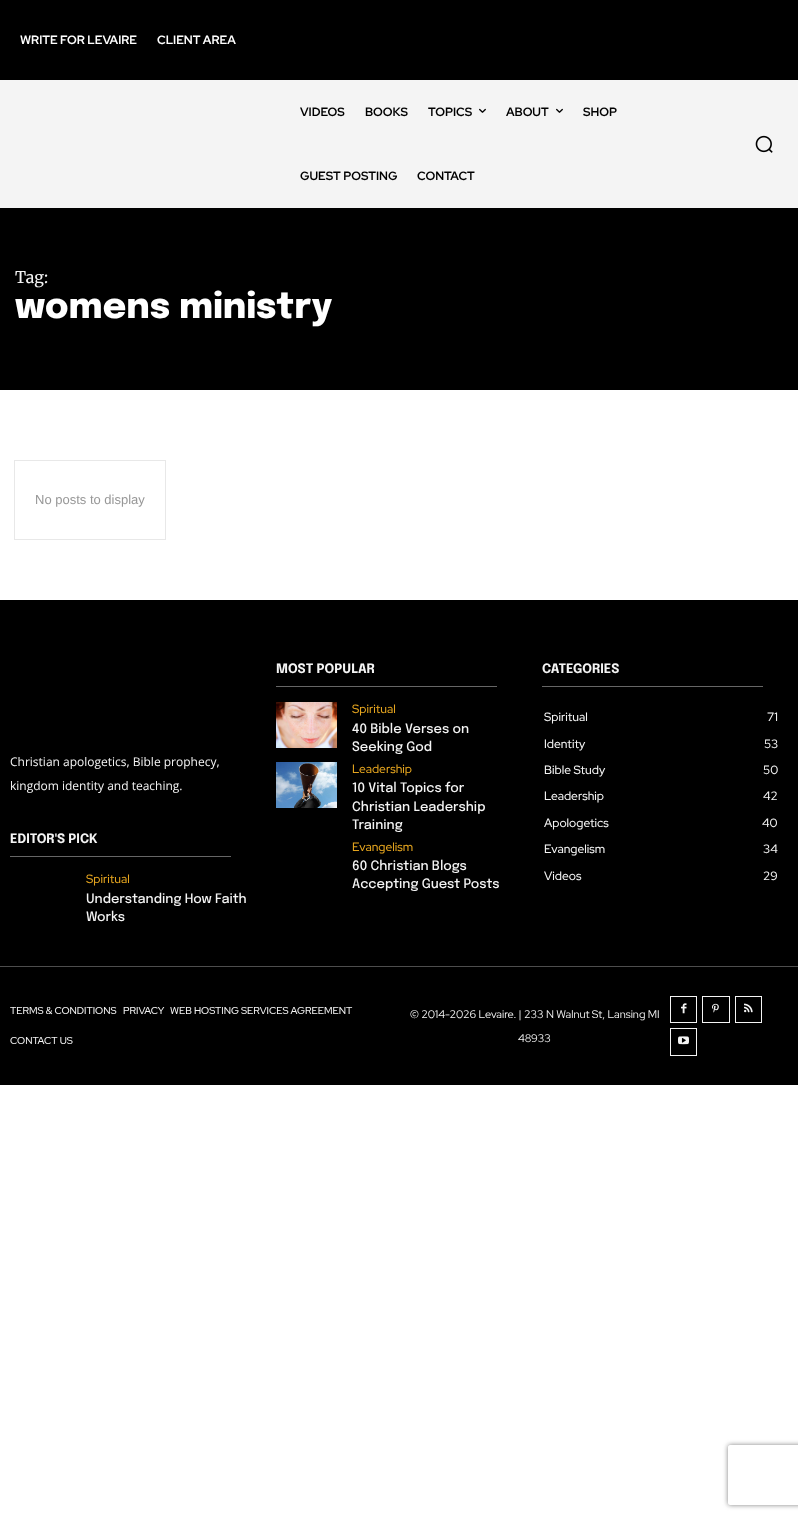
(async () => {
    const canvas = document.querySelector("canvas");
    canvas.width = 798;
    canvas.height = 1519;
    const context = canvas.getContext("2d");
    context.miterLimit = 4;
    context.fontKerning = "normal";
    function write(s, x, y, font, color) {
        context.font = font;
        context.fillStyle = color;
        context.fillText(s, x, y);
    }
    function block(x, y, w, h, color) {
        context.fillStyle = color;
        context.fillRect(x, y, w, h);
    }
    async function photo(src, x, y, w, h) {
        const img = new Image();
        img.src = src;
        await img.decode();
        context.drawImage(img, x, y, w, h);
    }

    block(0, 0, 798, 1519, "rgb(255, 255, 255)");
    block(0, 0, 798, 80, "rgb(0, 0, 0)");
    write("WRITE FOR LEVAIRE", 20, 44, "bold 12px Red Hat Display", "rgb(255, 255, 255)");
    write("CLIENT AREA", 157, 44, "bold 12px Red Hat Display", "rgb(255, 255, 255)");
    block(0, 80, 798, 128, "rgb(244, 244, 244)");
    write("VIDEOS", 300, 116, "bold 12px Red Hat Display", "rgb(0, 0, 0)");
    write("BOOKS", 365, 116, "bold 12px Red Hat Display", "rgb(0, 0, 0)");
    write("TOPICS", 428, 116, "bold 12px Red Hat Display", "rgb(0, 0, 0)");
    await photo("media/1.png", 479, 108, 7, 5);
    write("ABOUT", 506, 116, "bold 12px Red Hat Display", "rgb(0, 0, 0)");
    await photo("media/1.png", 556, 108, 7, 5);
    write("SHOP", 583, 116, "bold 12px Red Hat Display", "rgb(0, 0, 0)");
    write("GUEST POSTING", 300, 180, "bold 12px Red Hat Display", "rgb(0, 0, 0)");
    write("CONTACT", 417, 180, "bold 12px Red Hat Display", "rgb(0, 0, 0)");
    await photo("media/2.png", 755, 135, 18, 18);
    block(0, 208, 798, 182, "rgb(0, 0, 0)");
    write("Tag:", 15, 283, "300 16px Merriweather", "rgb(244, 244, 244)");
    write("womens ministry", 15, 318, "800 36px Epilogue", "rgb(255, 255, 255)");
    context.strokeStyle = "rgb(232, 232, 232)";
    context.strokeRect(14.5, 460.5, 151, 79);
    write("No posts to display", 35, 504, "13px Liberation Sans", "rgb(151, 151, 151)");
    block(0, 600, 798, 366, "rgb(0, 0, 0)");
    block(0, 966, 798, 1, "rgb(77, 77, 77)");
    write("Christian apologetics, Bible prophecy,", 10, 766, "12px Open Sans", "rgb(244, 244, 244)");
    write("kingdom identity and teaching.", 10, 790, "12px Open Sans", "rgb(244, 244, 244)");
    block(10, 856, 221, 1, "rgb(102, 102, 102)");
    write("EDITOR'S PICK", 10, 843, "bold 13px Epilogue", "rgb(244, 244, 244)");
    write("Spiritual", 86, 883, "500 12px Red Hat Display", "rgb(228, 164, 30)");
    write("Understanding How Faith", 86, 903, "500 13px Epilogue", "rgb(244, 244, 244)");
    write("Works", 86, 921, "500 13px Epilogue", "rgb(244, 244, 244)");
    block(276, 686, 221, 1, "rgb(102, 102, 102)");
    write("MOST POPULAR", 276, 673, "bold 13px Epilogue", "rgb(244, 244, 244)");
    await photo("media/3.png", 276, 702, 61, 46);
    write("Spiritual", 352, 713, "500 12px Red Hat Display", "rgb(228, 164, 30)");
    write("40 Bible Verses on", 352, 733, "500 13px Epilogue", "rgb(244, 244, 244)");
    write("Seeking God", 352, 751, "500 13px Epilogue", "rgb(244, 244, 244)");
    await photo("media/4.png", 276, 762, 61, 46);
    write("Leadership", 352, 773, "500 12px Red Hat Display", "rgb(228, 164, 30)");
    write("10 Vital Topics for", 352, 792, "500 13px Epilogue", "rgb(244, 244, 244)");
    write("Christian Leadership", 352, 811, "500 13px Epilogue", "rgb(244, 244, 244)");
    write("Training", 352, 829, "500 13px Epilogue", "rgb(244, 244, 244)");
    write("Evangelism", 352, 851, "500 12px Red Hat Display", "rgb(228, 164, 30)");
    write("60 Christian Blogs", 352, 870, "500 13px Epilogue", "rgb(244, 244, 244)");
    write("Accepting Guest Posts", 352, 888, "500 13px Epilogue", "rgb(244, 244, 244)");
    block(542, 686, 221, 1, "rgb(102, 102, 102)");
    write("CATEGORIES", 542, 673, "bold 13px Epilogue", "rgb(244, 244, 244)");
    write("Spiritual", 544, 721, "500 12px Red Hat Display", "rgb(244, 244, 244)");
    write("71", 767, 721, "500 12px Red Hat Display", "rgb(244, 244, 244)");
    write("Identity", 544, 748, "500 12px Red Hat Display", "rgb(244, 244, 244)");
    write("53", 764, 748, "500 12px Red Hat Display", "rgb(244, 244, 244)");
    write("Bible Study", 544, 774, "500 12px Red Hat Display", "rgb(244, 244, 244)");
    write("50", 763, 774, "500 12px Red Hat Display", "rgb(244, 244, 244)");
    write("Leadership", 544, 800, "500 12px Red Hat Display", "rgb(244, 244, 244)");
    write("42", 763, 800, "500 12px Red Hat Display", "rgb(244, 244, 244)");
    write("Apologetics", 544, 827, "500 12px Red Hat Display", "rgb(244, 244, 244)");
    write("40", 762, 827, "500 12px Red Hat Display", "rgb(244, 244, 244)");
    write("Evangelism", 544, 853, "500 12px Red Hat Display", "rgb(244, 244, 244)");
    write("34", 763, 853, "500 12px Red Hat Display", "rgb(244, 244, 244)");
    write("Videos", 544, 880, "500 12px Red Hat Display", "rgb(244, 244, 244)");
    write("29", 763, 880, "500 12px Red Hat Display", "rgb(244, 244, 244)");
    block(0, 967, 798, 118, "rgb(0, 0, 0)");
    write("TERMS & CONDITIONS", 10, 1014, "500 10px Red Hat Display", "rgb(244, 244, 244)");
    write("PRIVACY", 123, 1014, "500 10px Red Hat Display", "rgb(244, 244, 244)");
    write("WEB HOSTING SERVICES AGREEMENT", 170, 1014, "500 10px Red Hat Display", "rgb(244, 244, 244)");
    write("CONTACT US", 10, 1044, "500 10px Red Hat Display", "rgb(244, 244, 244)");
    write("© 2014-2026 Levaire. | 233 N Walnut St, Lansing MI", 410, 1018, "11px Red Hat Display", "rgb(244, 244, 244)");
    write("48933", 518, 1042, "11px Red Hat Display", "rgb(244, 244, 244)");
    context.strokeStyle = "rgb(244, 244, 244)";
    context.strokeRect(670.5, 996.5, 26, 26);
    await photo("media/5.png", 681, 1003, 6, 11);
    context.strokeRect(702.5, 996.5, 27, 26);
    await photo("media/6.png", 712, 1003, 7, 10);
    context.strokeRect(735.5, 996.5, 26, 26);
    await photo("media/7.png", 744, 1003, 9, 10);
    context.strokeRect(670.5, 1028.5, 26, 27);
    await photo("media/8.png", 678, 1036, 11, 9);
    context.save();
    context.beginPath();
    context.moveTo(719, 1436);
    context.lineTo(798, 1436);
    context.lineTo(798, 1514);
    context.lineTo(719, 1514);
    context.closePath();
    context.moveTo(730, 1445);
    context.lineTo(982, 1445);
    context.bezierCurveTo(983, 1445, 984, 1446, 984, 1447);
    context.lineTo(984, 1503);
    context.bezierCurveTo(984, 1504, 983, 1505, 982, 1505);
    context.lineTo(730, 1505);
    context.bezierCurveTo(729, 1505, 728, 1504, 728, 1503);
    context.lineTo(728, 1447);
    context.bezierCurveTo(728, 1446, 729, 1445, 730, 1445);
    context.closePath();
    context.clip("evenodd");
    context.fillStyle = "rgb(128, 128, 128)";
    context.filter = "blur(2.5px)";
    context.beginPath();
    context.roundRect(728, 1445, 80, 60, 2);
    context.fill();
    context.filter = "none";
    context.restore();
})();
